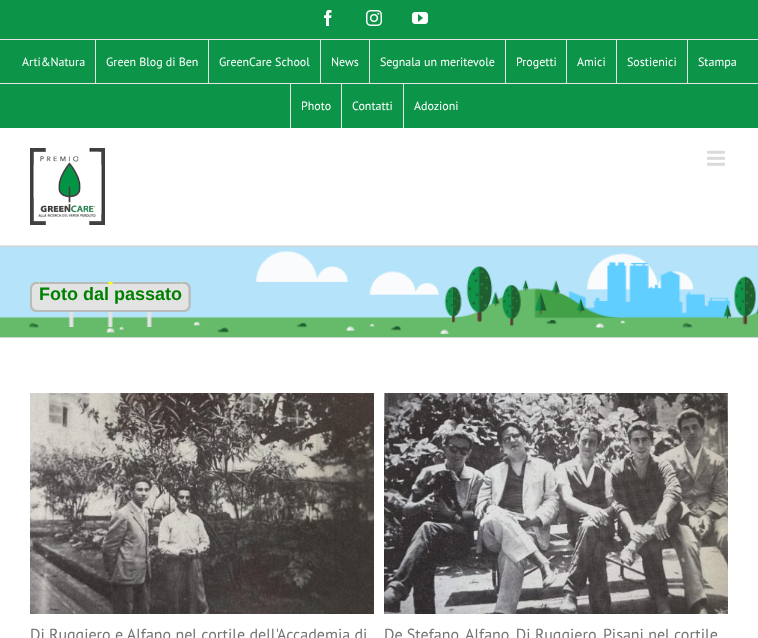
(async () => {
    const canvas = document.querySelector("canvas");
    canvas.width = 758;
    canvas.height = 638;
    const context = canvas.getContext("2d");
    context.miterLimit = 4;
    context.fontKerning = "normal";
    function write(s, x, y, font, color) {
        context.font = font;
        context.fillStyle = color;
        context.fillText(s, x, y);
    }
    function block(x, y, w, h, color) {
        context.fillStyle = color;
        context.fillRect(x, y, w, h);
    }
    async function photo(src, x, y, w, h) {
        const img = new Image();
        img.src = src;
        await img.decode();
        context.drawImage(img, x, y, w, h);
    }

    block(0, 0, 758, 638, "rgb(255, 255, 255)");
    block(0, 0, 758, 128, "rgb(12, 148, 72)");
    block(0, 39, 758, 1, "rgb(229, 229, 229)");
    await photo("media/1.png", 324, 10, 8, 16);
    await photo("media/2.png", 366, 10, 16, 16);
    await photo("media/3.png", 412, 12, 16, 12);
    write("Arti&Natura", 22, 66, "12px PT Sans", "rgb(255, 255, 255)");
    block(95, 40, 1, 44, "rgb(229, 229, 229)");
    write("Green Blog di Ben", 106, 66, "12px PT Sans", "rgb(255, 255, 255)");
    block(208, 40, 1, 44, "rgb(229, 229, 229)");
    write("GreenCare School", 219, 66, "12px PT Sans", "rgb(255, 255, 255)");
    block(320, 40, 1, 44, "rgb(229, 229, 229)");
    write("News", 331, 66, "12px PT Sans", "rgb(255, 255, 255)");
    block(369, 40, 1, 44, "rgb(229, 229, 229)");
    write("Segnala un meritevole", 380, 66, "12px PT Sans", "rgb(255, 255, 255)");
    block(505, 40, 1, 44, "rgb(229, 229, 229)");
    write("Progetti", 516, 66, "12px PT Sans", "rgb(255, 255, 255)");
    block(566, 40, 1, 44, "rgb(229, 229, 229)");
    write("Amici", 577, 66, "12px PT Sans", "rgb(255, 255, 255)");
    block(616, 40, 1, 44, "rgb(229, 229, 229)");
    write("Sostienici", 627, 66, "12px PT Sans", "rgb(255, 255, 255)");
    block(687, 40, 1, 44, "rgb(229, 229, 229)");
    write("Stampa", 698, 66, "12px PT Sans", "rgb(255, 255, 255)");
    block(0, 83, 758, 1, "rgb(229, 229, 229)");
    block(290, 84, 1, 44, "rgb(229, 229, 229)");
    write("Photo", 301, 110, "12px PT Sans", "rgb(255, 255, 255)");
    block(341, 84, 1, 44, "rgb(229, 229, 229)");
    write("Contatti", 352, 110, "12px PT Sans", "rgb(255, 255, 255)");
    block(403, 84, 1, 44, "rgb(229, 229, 229)");
    write("Adozioni", 414, 110, "12px PT Sans", "rgb(255, 255, 255)");
    block(0, 245, 758, 1, "rgb(229, 229, 229)");
    await photo("media/4.png", 30, 148, 75, 77);
    await photo("media/5.png", 707, 150, 18, 16);
    block(0, 334, 758, 3, "rgb(102, 187, 106)");
    await photo("media/6.png", 0, 247, 758, 87);
    block(0, 246, 758, 1, "rgb(210, 211, 212)");
    block(0, 337, 758, 1, "rgb(210, 211, 212)");
    await photo("media/7.png", 39, 282, 143, 45);
    await photo("media/8.png", 30, 282, 9, 30);
    write("Foto dal passato", 39, 300, "bold 18px Liberation Sans", "rgb(0, 128, 0)");
    await photo("media/9.png", 182, 282, 9, 30);
    await photo("media/10.png", 30, 393, 344, 221);
    write("Di Ruggiero e Alfano nel cortile dell'Accademia di", 30, 640, "16px PT Sans", "rgb(116, 116, 116)");
    await photo("media/11.png", 384, 393, 344, 221);
    write("De Stefano, Alfano, Di Ruggiero, Pisani nel cortile", 384, 640, "16px PT Sans", "rgb(116, 116, 116)");
})();
